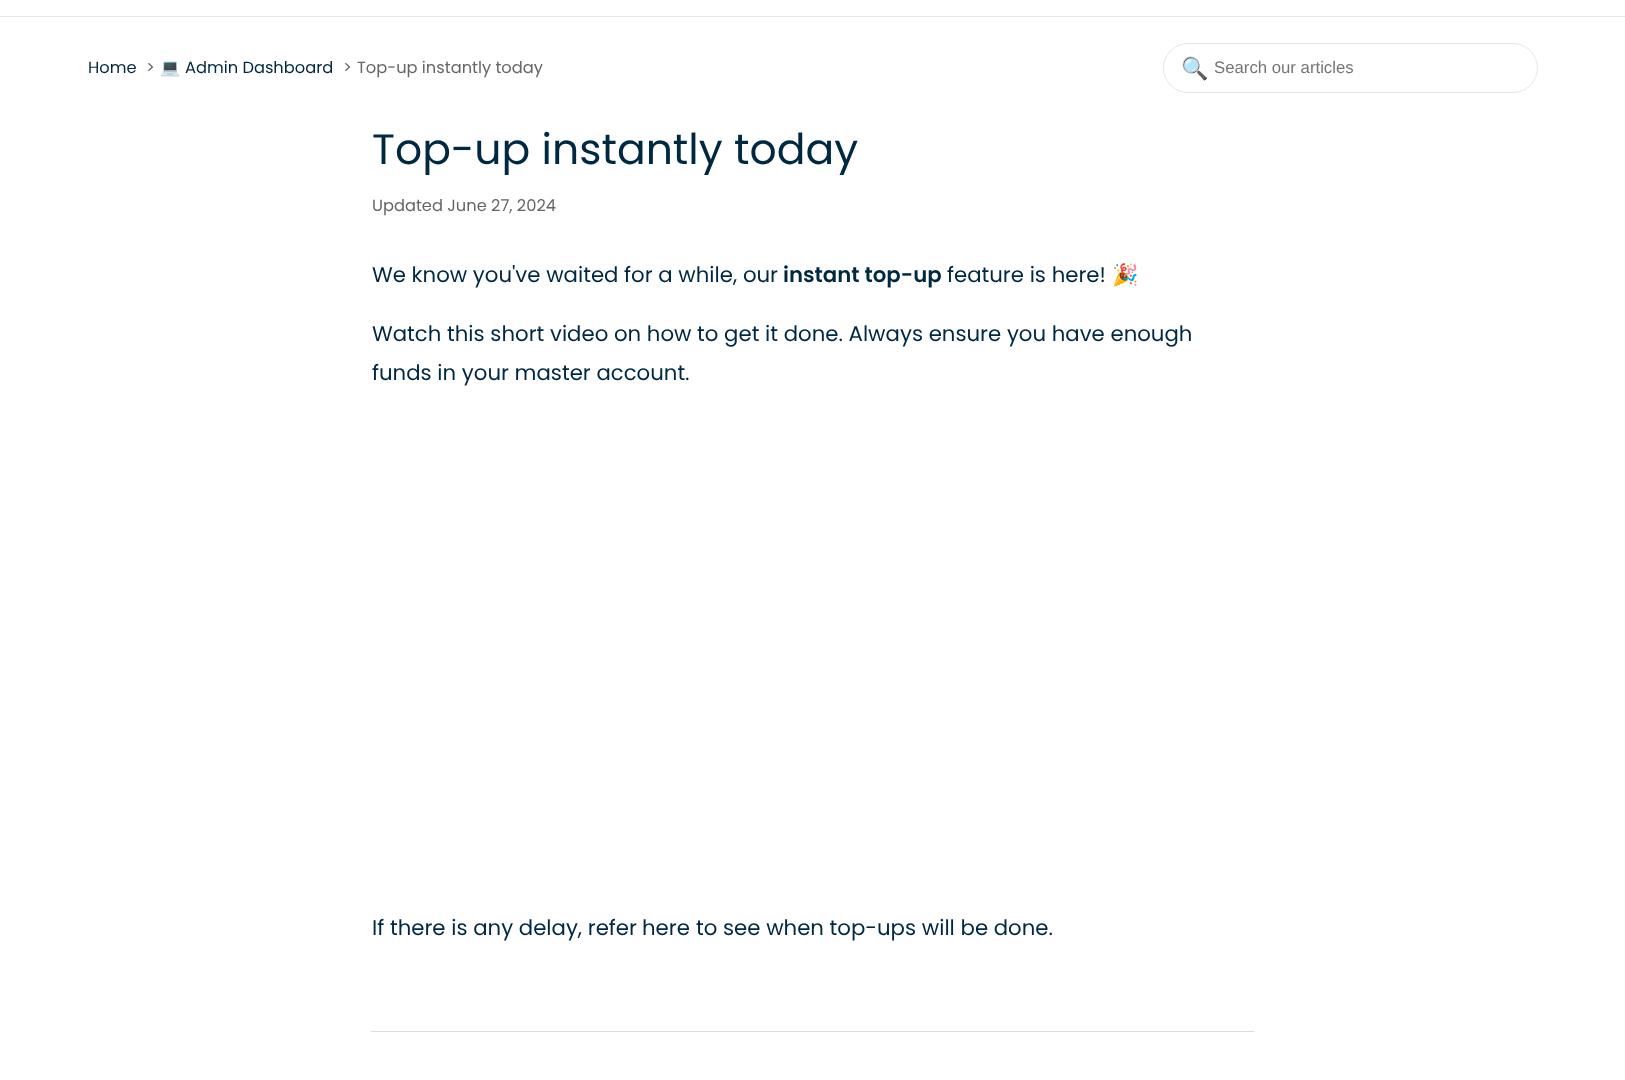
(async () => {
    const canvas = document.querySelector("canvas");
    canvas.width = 1625;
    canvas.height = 1080;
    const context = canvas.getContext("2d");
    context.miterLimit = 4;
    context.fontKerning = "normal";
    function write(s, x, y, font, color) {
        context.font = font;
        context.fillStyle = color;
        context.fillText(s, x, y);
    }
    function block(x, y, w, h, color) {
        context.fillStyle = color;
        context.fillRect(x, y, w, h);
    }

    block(0, 0, 1625, 1080, "rgb(255, 255, 255)");
    block(0, 16, 1625, 1, "rgb(228, 231, 231)");
    write("Home", 88, 73, "16.25px Poppins", "rgb(0, 40, 64)");
    write(">", 146, 73, "16.25px Poppins", "rgb(102, 102, 102)");
    write("💻", 160, 73, "16.25px Noto Color Emoji", "rgb(0, 40, 64)");
    write("Admin Dashboard", 185, 73, "16.25px Poppins", "rgb(0, 40, 64)");
    write(">", 343, 73, "16.25px Poppins", "rgb(102, 102, 102)");
    write("Top-up instantly today", 357, 73, "16.25px Poppins", "rgb(102, 102, 102)");
    context.beginPath();
    context.roundRect(1163.5, 43.5, 374, 49, 24.5);
    context.strokeStyle = "rgb(228, 231, 231)";
    context.stroke();
    write("🔍", 1181, 76, "22px Noto Color Emoji", "rgb(228, 231, 231)");
    write("Search our articles", 1214, 73, "16.75px Liberation Sans", "rgb(117, 117, 117)");
    write("Top-up instantly today", 372, 164, "42.5px Poppins", "rgb(0, 40, 64)");
    write("Updated June 27, 2024", 372, 211, "16.25px Poppins", "rgb(102, 102, 102)");
    write("We know you've waited for a while, our", 372, 282, "21.25px Poppins", "rgb(0, 40, 64)");
    write("instant top-up", 783, 282, "600 21.25px Poppins", "rgb(0, 40, 64)");
    write("feature is here!", 947, 282, "21.25px Poppins", "rgb(0, 40, 64)");
    write("🎉", 1112, 282, "21.25px Noto Color Emoji", "rgb(0, 40, 64)");
    write("Watch this short video on how to get it done. Always ensure you have enough", 372, 341, "21.25px Poppins", "rgb(0, 40, 64)");
    write("funds in your master account", 372, 380, "21.25px Poppins", "rgb(0, 40, 64)");
    write(".", 685, 380, "21.25px Poppins", "rgb(0, 40, 64)");
    write("If there is any delay, refer", 372, 935, "21.25px Poppins", "rgb(0, 40, 64)");
    write("here", 642, 935, "21.25px Poppins", "rgb(0, 40, 64)");
    write("to see when top-ups will be done.", 696, 935, "21.25px Poppins", "rgb(0, 40, 64)");
    block(371, 1031, 883, 1, "rgb(221, 221, 221)");
})();
